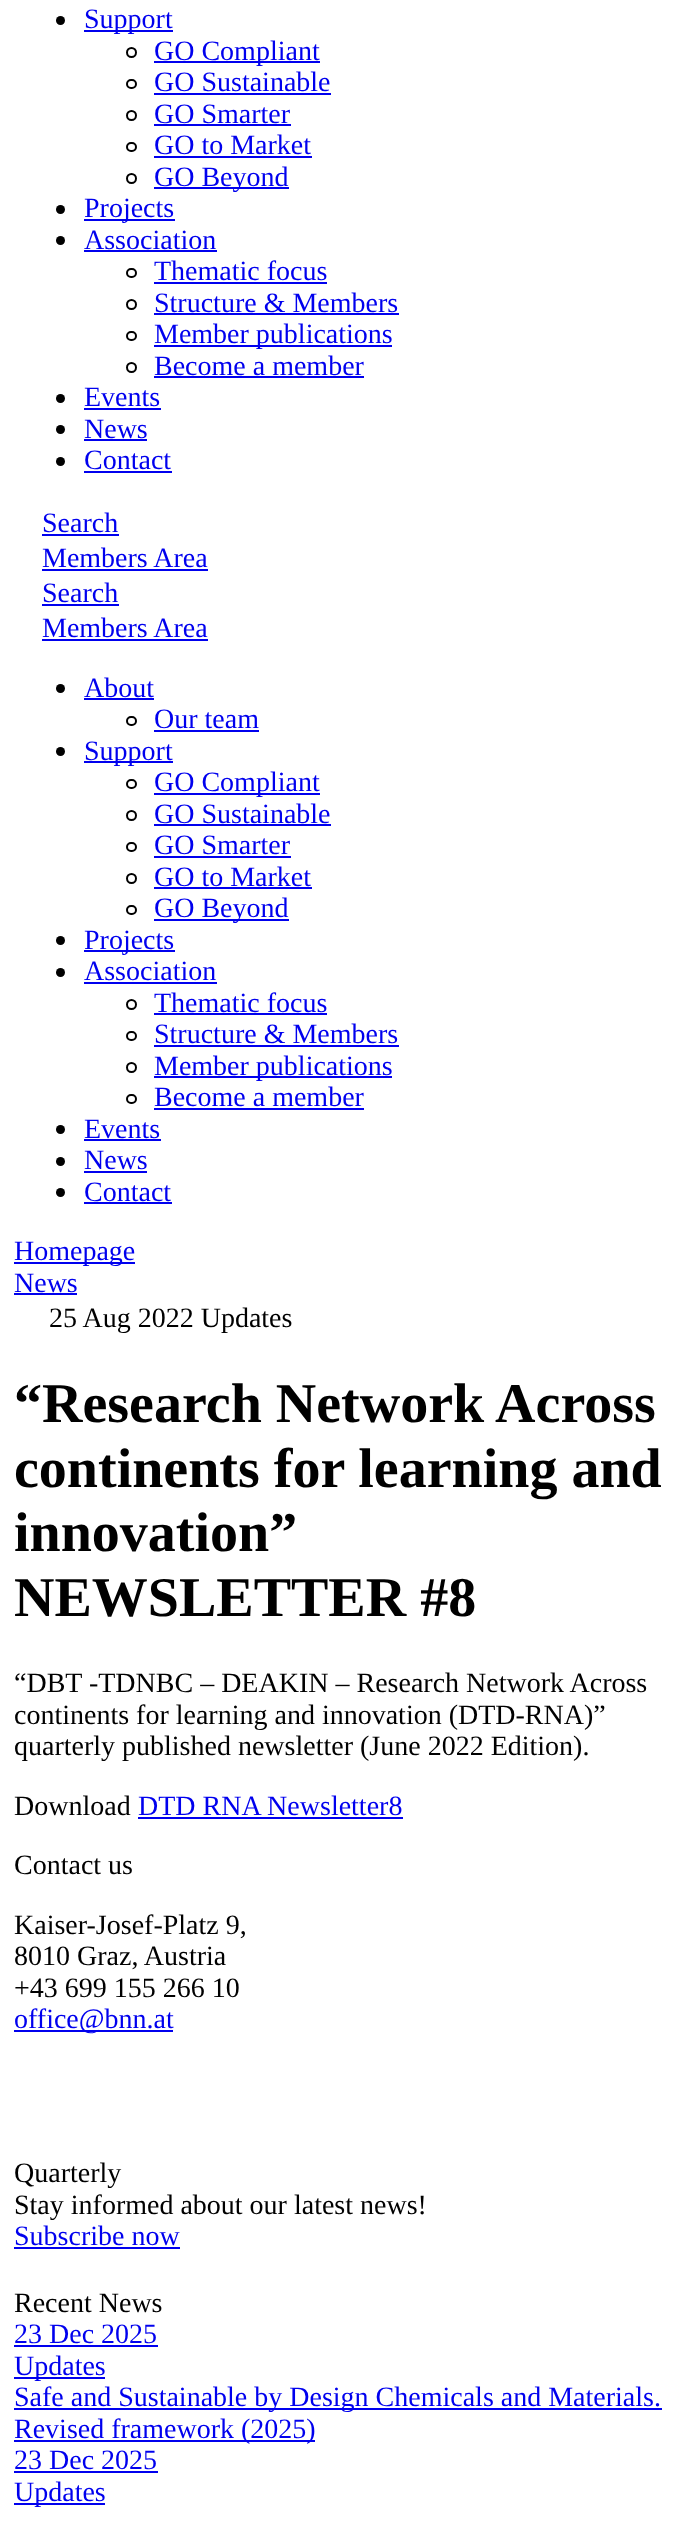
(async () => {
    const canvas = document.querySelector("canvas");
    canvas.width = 680;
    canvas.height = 2521;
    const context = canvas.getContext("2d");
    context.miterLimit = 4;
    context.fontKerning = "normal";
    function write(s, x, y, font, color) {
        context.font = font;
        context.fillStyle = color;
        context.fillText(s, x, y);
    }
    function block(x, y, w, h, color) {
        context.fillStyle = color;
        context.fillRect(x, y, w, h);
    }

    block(0, 0, 680, 2521, "rgb(255, 255, 255)");
    context.fillStyle = "rgb(0, 0, 0)";
    context.beginPath();
    context.arc(60.5, 20.5, 4.5, 0, Math.PI * 2);
    context.fill();
    block(84, 30, 89, 2, "rgb(0, 0, 238)");
    write("Support", 84, 28, "28px Liberation Serif", "rgb(0, 0, 238)");
    context.beginPath();
    context.arc(131.5, 52.5, 4.5, 0, Math.PI * 2);
    context.strokeStyle = "rgb(0, 0, 0)";
    context.lineWidth = 2;
    context.stroke();
    block(154, 61, 166, 2, "rgb(0, 0, 238)");
    write("GO Compliant", 154, 60, "28px Liberation Serif", "rgb(0, 0, 238)");
    context.beginPath();
    context.roundRect(127, 80, 9, 8, 4);
    context.stroke();
    write("GO Sustainable", 154, 91, "28px Liberation Serif", "rgb(0, 0, 238)");
    block(154, 93, 177, 2, "rgb(0, 0, 238)");
    context.beginPath();
    context.arc(131.5, 115.5, 4.5, 0, Math.PI * 2);
    context.stroke();
    write("GO Smarter", 154, 123, "28px Liberation Serif", "rgb(0, 0, 238)");
    block(154, 124, 137, 2, "rgb(0, 0, 238)");
    context.beginPath();
    context.roundRect(127, 143, 9, 8, 4);
    context.stroke();
    write("GO to Market", 154, 154, "28px Liberation Serif", "rgb(0, 0, 238)");
    block(154, 156, 158, 2, "rgb(0, 0, 238)");
    context.beginPath();
    context.arc(131.5, 178.5, 4.5, 0, Math.PI * 2);
    context.stroke();
    block(154, 187, 135, 2, "rgb(0, 0, 238)");
    write("GO Beyond", 154, 186, "28px Liberation Serif", "rgb(0, 0, 238)");
    context.fillStyle = "rgb(0, 0, 0)";
    context.beginPath();
    context.arc(60.5, 209.5, 4.5, 0, Math.PI * 2);
    context.fill();
    block(84, 219, 91, 2, "rgb(0, 0, 238)");
    write("Projects", 84, 217, "28px Liberation Serif", "rgb(0, 0, 238)");
    context.fillStyle = "rgb(0, 0, 0)";
    context.beginPath();
    context.arc(60.5, 240.5, 4.5, 0, Math.PI * 2);
    context.fill();
    write("Association", 84, 249, "28px Liberation Serif", "rgb(0, 0, 238)");
    block(84, 250, 133, 2, "rgb(0, 0, 238)");
    context.beginPath();
    context.roundRect(127, 269, 9, 8, 4);
    context.stroke();
    write("Thematic focus", 154, 280, "28px Liberation Serif", "rgb(0, 0, 238)");
    block(154, 282, 173, 2, "rgb(0, 0, 238)");
    context.beginPath();
    context.arc(131.5, 304.5, 4.5, 0, Math.PI * 2);
    context.stroke();
    write("Structure & Members", 154, 312, "28px Liberation Serif", "rgb(0, 0, 238)");
    block(154, 313, 245, 2, "rgb(0, 0, 238)");
    context.beginPath();
    context.roundRect(127, 332, 9, 8, 4);
    context.stroke();
    block(154, 345, 238, 2, "rgb(0, 0, 238)");
    write("Member publications", 154, 343, "28px Liberation Serif", "rgb(0, 0, 238)");
    context.beginPath();
    context.arc(131.5, 367.5, 4.5, 0, Math.PI * 2);
    context.stroke();
    write("Become a member", 154, 375, "28px Liberation Serif", "rgb(0, 0, 238)");
    block(154, 376, 210, 2, "rgb(0, 0, 238)");
    context.fillStyle = "rgb(0, 0, 0)";
    context.beginPath();
    context.arc(60.5, 398.5, 4.5, 0, Math.PI * 2);
    context.fill();
    write("Events", 84, 406, "28px Liberation Serif", "rgb(0, 0, 238)");
    block(84, 408, 77, 2, "rgb(0, 0, 238)");
    context.fillStyle = "rgb(0, 0, 0)";
    context.beginPath();
    context.arc(60.5, 429.5, 4.5, 0, Math.PI * 2);
    context.fill();
    write("News", 84, 438, "28px Liberation Serif", "rgb(0, 0, 238)");
    block(84, 439, 63, 2, "rgb(0, 0, 238)");
    context.fillStyle = "rgb(0, 0, 0)";
    context.beginPath();
    context.arc(60.5, 461.5, 4.5, 0, Math.PI * 2);
    context.fill();
    write("Contact", 84, 469, "28px Liberation Serif", "rgb(0, 0, 238)");
    block(84, 471, 88, 2, "rgb(0, 0, 238)");
    write("Search", 42, 532, "28px Liberation Serif", "rgb(0, 0, 238)");
    block(42, 534, 77, 2, "rgb(0, 0, 238)");
    write("Members Area", 42, 567, "28px Liberation Serif", "rgb(0, 0, 238)");
    block(42, 569, 166, 2, "rgb(0, 0, 238)");
    write("Search", 42, 602, "28px Liberation Serif", "rgb(0, 0, 238)");
    block(42, 604, 77, 2, "rgb(0, 0, 238)");
    write("Members Area", 42, 637, "28px Liberation Serif", "rgb(0, 0, 238)");
    block(42, 639, 166, 2, "rgb(0, 0, 238)");
    context.fillStyle = "rgb(0, 0, 0)";
    context.beginPath();
    context.arc(60.5, 688.5, 4.5, 0, Math.PI * 2);
    context.fill();
    write("About", 84, 697, "28px Liberation Serif", "rgb(0, 0, 238)");
    block(84, 698, 70, 2, "rgb(0, 0, 238)");
    context.beginPath();
    context.roundRect(127, 717, 9, 8, 4);
    context.stroke();
    write("Our team", 154, 728, "28px Liberation Serif", "rgb(0, 0, 238)");
    block(154, 730, 105, 2, "rgb(0, 0, 238)");
    context.fillStyle = "rgb(0, 0, 0)";
    context.beginPath();
    context.arc(60.5, 751.5, 4.5, 0, Math.PI * 2);
    context.fill();
    block(84, 761, 89, 2, "rgb(0, 0, 238)");
    write("Support", 84, 760, "28px Liberation Serif", "rgb(0, 0, 238)");
    context.beginPath();
    context.roundRect(127, 780, 9, 8, 4);
    context.stroke();
    block(154, 793, 166, 2, "rgb(0, 0, 238)");
    write("GO Compliant", 154, 791, "28px Liberation Serif", "rgb(0, 0, 238)");
    context.beginPath();
    context.arc(131.5, 815.5, 4.5, 0, Math.PI * 2);
    context.stroke();
    write("GO Sustainable", 154, 823, "28px Liberation Serif", "rgb(0, 0, 238)");
    block(154, 824, 177, 2, "rgb(0, 0, 238)");
    context.beginPath();
    context.roundRect(127, 843, 9, 8, 4);
    context.stroke();
    write("GO Smarter", 154, 854, "28px Liberation Serif", "rgb(0, 0, 238)");
    block(154, 856, 137, 2, "rgb(0, 0, 238)");
    context.beginPath();
    context.arc(131.5, 878.5, 4.5, 0, Math.PI * 2);
    context.stroke();
    write("GO to Market", 154, 886, "28px Liberation Serif", "rgb(0, 0, 238)");
    block(154, 887, 158, 2, "rgb(0, 0, 238)");
    context.beginPath();
    context.roundRect(127, 906, 9, 8, 4);
    context.stroke();
    block(154, 919, 135, 2, "rgb(0, 0, 238)");
    write("GO Beyond", 154, 917, "28px Liberation Serif", "rgb(0, 0, 238)");
    context.fillStyle = "rgb(0, 0, 0)";
    context.beginPath();
    context.arc(60.5, 940.5, 4.5, 0, Math.PI * 2);
    context.fill();
    block(84, 950, 91, 2, "rgb(0, 0, 238)");
    write("Projects", 84, 949, "28px Liberation Serif", "rgb(0, 0, 238)");
    context.fillStyle = "rgb(0, 0, 0)";
    context.beginPath();
    context.arc(60.5, 972.5, 4.5, 0, Math.PI * 2);
    context.fill();
    write("Association", 84, 980, "28px Liberation Serif", "rgb(0, 0, 238)");
    block(84, 982, 133, 2, "rgb(0, 0, 238)");
    context.beginPath();
    context.arc(131.5, 1004.5, 4.5, 0, Math.PI * 2);
    context.stroke();
    write("Thematic focus", 154, 1012, "28px Liberation Serif", "rgb(0, 0, 238)");
    block(154, 1013, 173, 2, "rgb(0, 0, 238)");
    context.beginPath();
    context.roundRect(127, 1032, 9, 8, 4);
    context.stroke();
    write("Structure & Members", 154, 1043, "28px Liberation Serif", "rgb(0, 0, 238)");
    block(154, 1045, 245, 2, "rgb(0, 0, 238)");
    context.beginPath();
    context.arc(131.5, 1067.5, 4.5, 0, Math.PI * 2);
    context.stroke();
    block(154, 1076, 238, 2, "rgb(0, 0, 238)");
    write("Member publications", 154, 1075, "28px Liberation Serif", "rgb(0, 0, 238)");
    context.beginPath();
    context.roundRect(127, 1095, 9, 8, 4);
    context.stroke();
    write("Become a member", 154, 1106, "28px Liberation Serif", "rgb(0, 0, 238)");
    block(154, 1108, 210, 2, "rgb(0, 0, 238)");
    context.fillStyle = "rgb(0, 0, 0)";
    context.beginPath();
    context.arc(60.5, 1129.5, 4.5, 0, Math.PI * 2);
    context.fill();
    write("Events", 84, 1138, "28px Liberation Serif", "rgb(0, 0, 238)");
    block(84, 1139, 77, 2, "rgb(0, 0, 238)");
    context.fillStyle = "rgb(0, 0, 0)";
    context.beginPath();
    context.arc(60.5, 1161.5, 4.5, 0, Math.PI * 2);
    context.fill();
    write("News", 84, 1169, "28px Liberation Serif", "rgb(0, 0, 238)");
    block(84, 1171, 63, 2, "rgb(0, 0, 238)");
    context.fillStyle = "rgb(0, 0, 0)";
    context.beginPath();
    context.arc(60.5, 1192.5, 4.5, 0, Math.PI * 2);
    context.fill();
    write("Contact", 84, 1201, "28px Liberation Serif", "rgb(0, 0, 238)");
    block(84, 1202, 88, 2, "rgb(0, 0, 238)");
    block(14, 1262, 121, 2, "rgb(0, 0, 238)");
    write("Homepage", 14, 1260, "28px Liberation Serif", "rgb(0, 0, 238)");
    write("News", 14, 1292, "28px Liberation Serif", "rgb(0, 0, 238)");
    block(14, 1293, 63, 2, "rgb(0, 0, 238)");
    write("25 Aug 2022 Updates", 49, 1327, "28px Liberation Serif", "rgb(0, 0, 0)");
    write("“Research Network Across", 14, 1422, "bold 56px Liberation Serif", "rgb(0, 0, 0)");
    write("continents for learning and", 14, 1487, "bold 56px Liberation Serif", "rgb(0, 0, 0)");
    write("innovation”", 14, 1551, "bold 56px Liberation Serif", "rgb(0, 0, 0)");
    write("NEWSLETTER #8", 14, 1616, "bold 56px Liberation Serif", "rgb(0, 0, 0)");
    write("“DBT -TDNBC – DEAKIN – Research Network Across", 14, 1692, "28px Liberation Serif", "rgb(0, 0, 0)");
    write("continents for learning and innovation (DTD-RNA)”", 14, 1724, "28px Liberation Serif", "rgb(0, 0, 0)");
    write("quarterly published newsletter (June 2022 Edition).", 14, 1755, "28px Liberation Serif", "rgb(0, 0, 0)");
    write("Download", 14, 1815, "28px Liberation Serif", "rgb(0, 0, 0)");
    write("DTD RNA Newsletter8", 138, 1815, "28px Liberation Serif", "rgb(0, 0, 238)");
    block(138, 1817, 265, 2, "rgb(0, 0, 238)");
    write("Contact us", 14, 1874, "28px Liberation Serif", "rgb(0, 0, 0)");
    write("Kaiser-Josef-Platz 9,", 14, 1934, "28px Liberation Serif", "rgb(0, 0, 0)");
    write("8010 Graz, Austria", 14, 1965, "28px Liberation Serif", "rgb(0, 0, 0)");
    write("+43 699 155 266 10", 14, 1997, "28px Liberation Serif", "rgb(0, 0, 0)");
    block(14, 2030, 159, 2, "rgb(0, 0, 238)");
    write("office@bnn.at", 14, 2028, "28px Liberation Serif", "rgb(0, 0, 238)");
    write("Quarterly", 14, 2182, "28px Liberation Serif", "rgb(0, 0, 0)");
    write("Stay informed about our latest news!", 14, 2214, "28px Liberation Serif", "rgb(0, 0, 0)");
    write("Subscribe now", 14, 2245, "28px Liberation Serif", "rgb(0, 0, 238)");
    block(14, 2247, 166, 2, "rgb(0, 0, 238)");
    write("Recent News", 14, 2312, "28px Liberation Serif", "rgb(0, 0, 0)");
    write("23 Dec 2025", 14, 2343, "28px Liberation Serif", "rgb(0, 0, 238)");
    block(14, 2345, 144, 2, "rgb(0, 0, 238)");
    block(14, 2377, 91, 2, "rgb(0, 0, 238)");
    write("Updates", 14, 2375, "28px Liberation Serif", "rgb(0, 0, 238)");
    block(14, 2408, 648, 2, "rgb(0, 0, 238)");
    write("Safe and Sustainable by Design Chemicals and Materials.", 14, 2406, "28px Liberation Serif", "rgb(0, 0, 238)");
    block(14, 2440, 301, 2, "rgb(0, 0, 238)");
    write("Revised framework (2025)", 14, 2438, "28px Liberation Serif", "rgb(0, 0, 238)");
    write("23 Dec 2025", 14, 2469, "28px Liberation Serif", "rgb(0, 0, 238)");
    block(14, 2471, 144, 2, "rgb(0, 0, 238)");
    block(14, 2503, 91, 2, "rgb(0, 0, 238)");
    write("Updates", 14, 2501, "28px Liberation Serif", "rgb(0, 0, 238)");
})();
